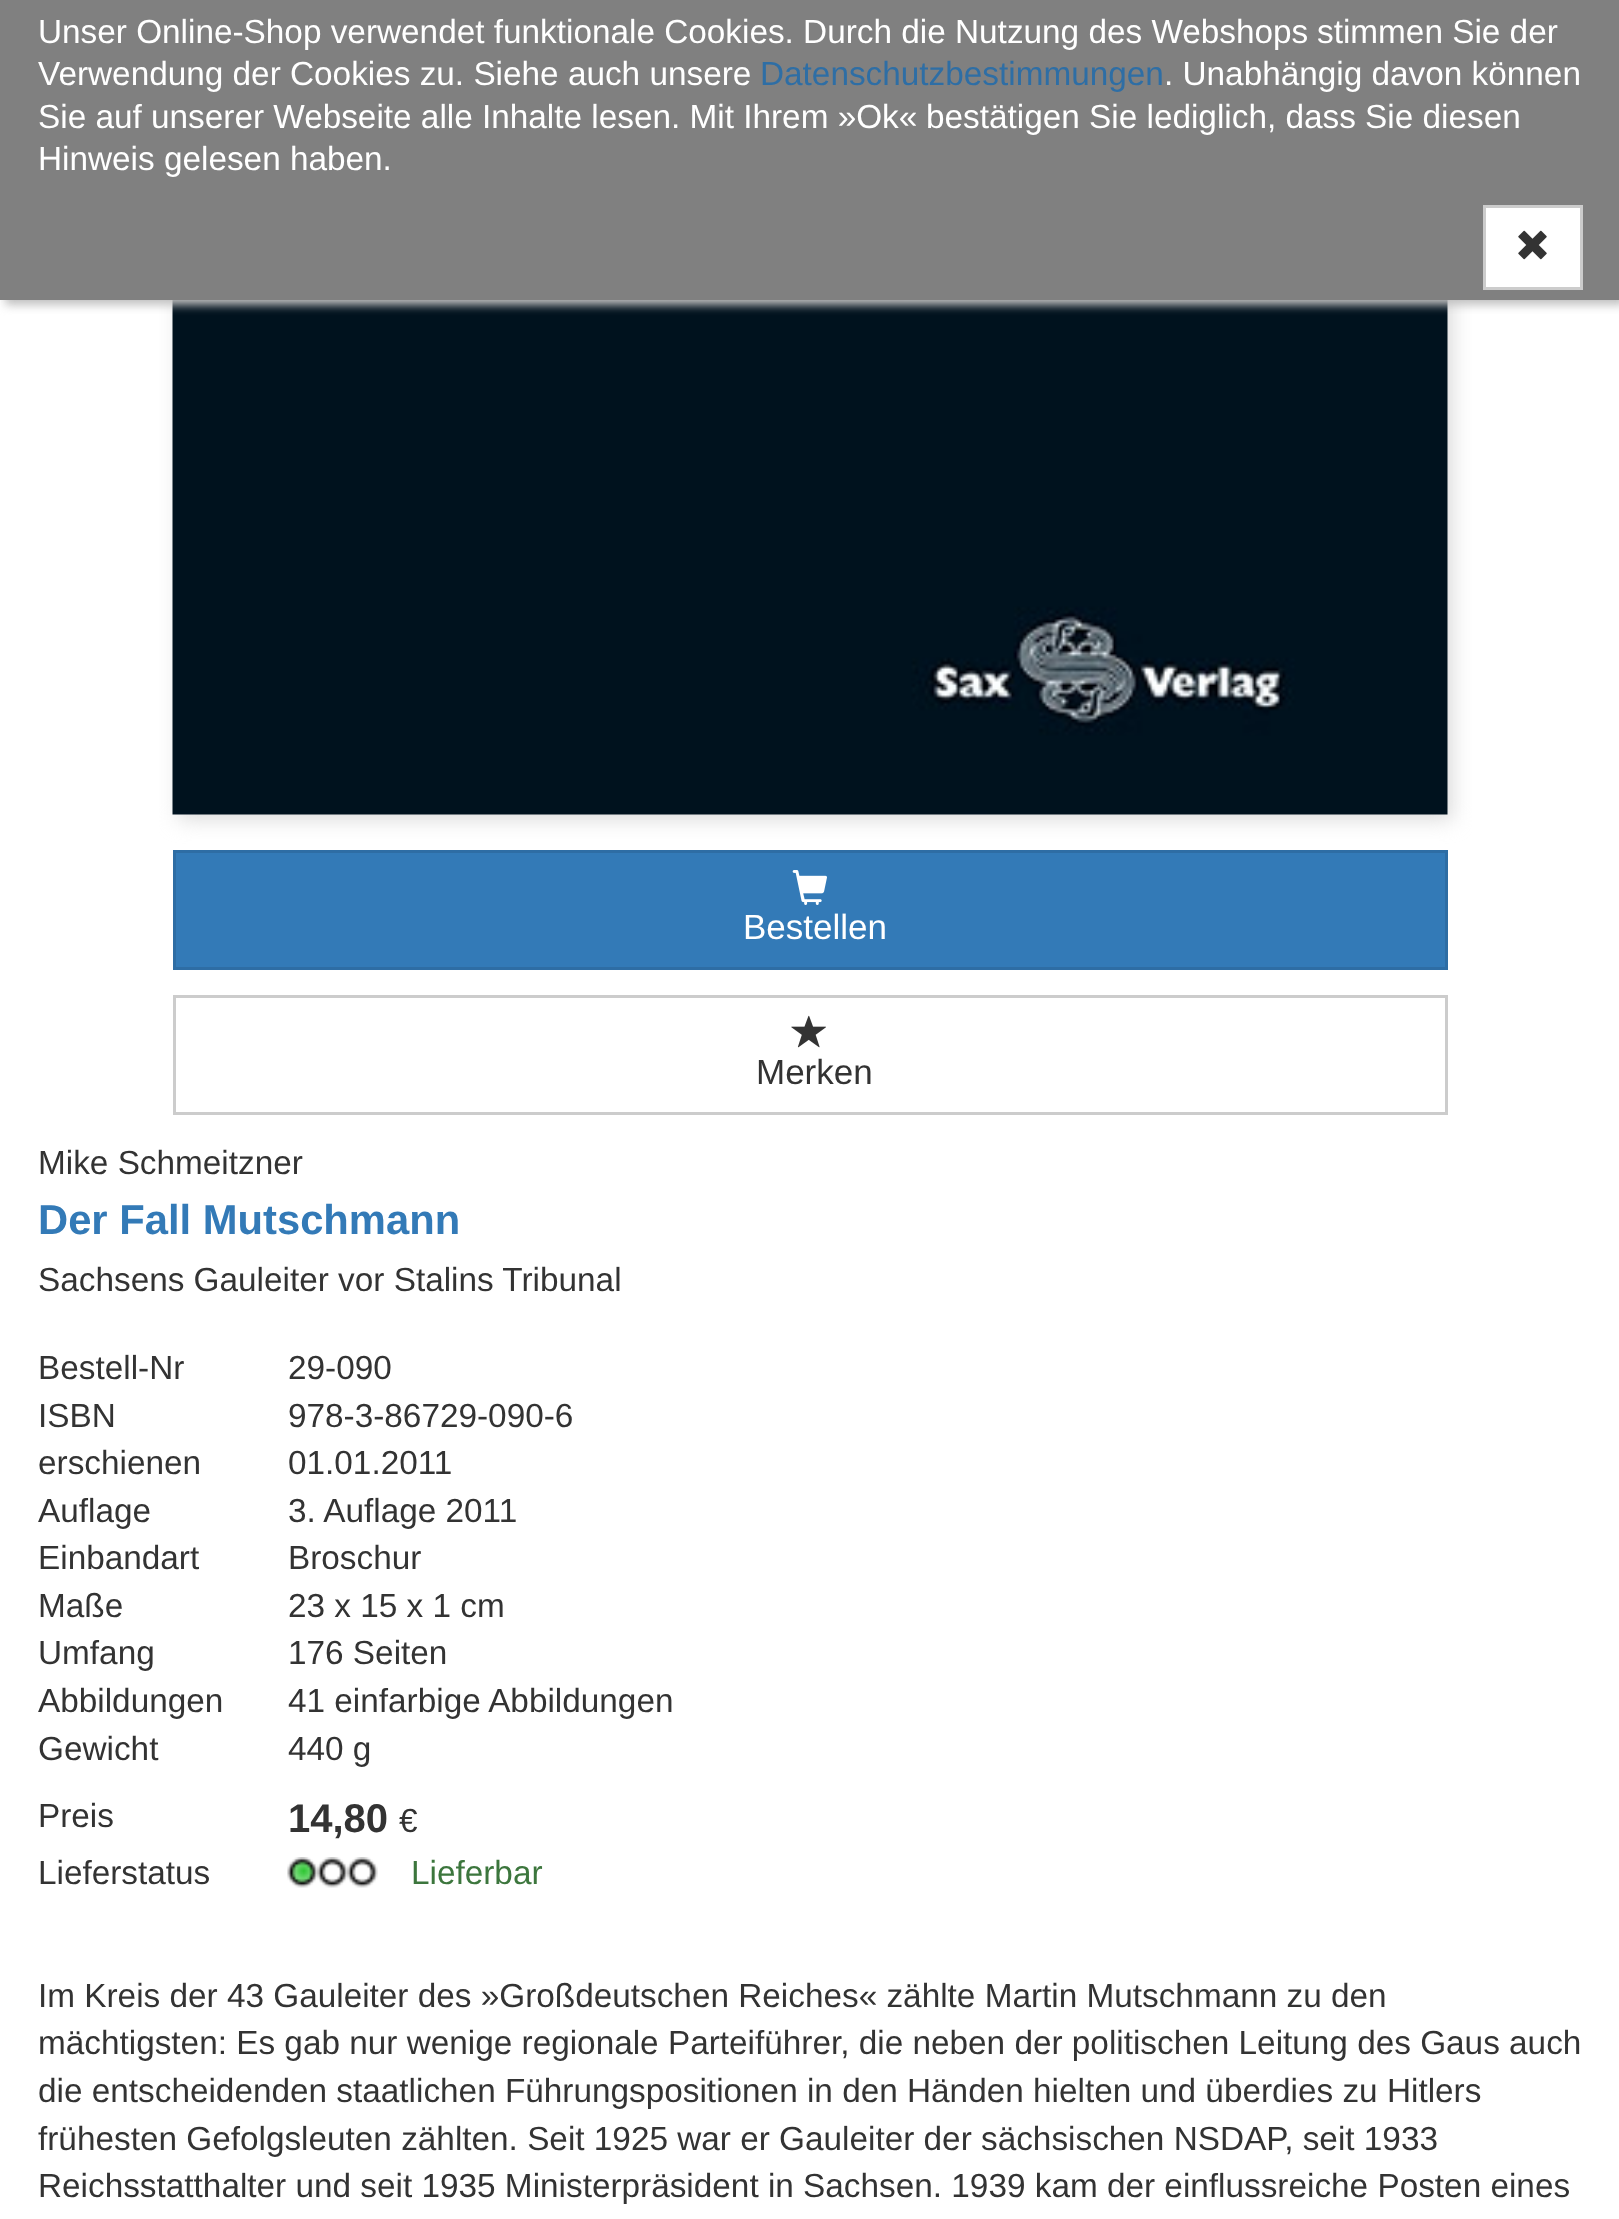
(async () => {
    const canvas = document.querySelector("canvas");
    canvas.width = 1619;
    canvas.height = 2219;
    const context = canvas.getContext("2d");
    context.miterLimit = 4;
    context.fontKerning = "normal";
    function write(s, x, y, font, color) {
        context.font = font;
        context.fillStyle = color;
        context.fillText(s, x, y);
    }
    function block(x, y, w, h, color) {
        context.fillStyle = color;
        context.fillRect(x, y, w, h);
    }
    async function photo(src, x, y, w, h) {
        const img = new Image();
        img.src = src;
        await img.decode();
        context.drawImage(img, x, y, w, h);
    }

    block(0, 0, 1619, 2219, "rgb(255, 255, 255)");
    context.fillStyle = "rgb(220, 220, 220)";
    context.filter = "blur(10px)";
    context.beginPath();
    context.rect(178, -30, 1275, 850);
    context.fill();
    context.filter = "none";
    await photo("media/2.png", 172, 300, 1276, 515);
    context.fillStyle = "rgb(192, 192, 192)";
    context.filter = "blur(5px)";
    context.beginPath();
    context.rect(5, 5, 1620, 300);
    context.fill();
    context.filter = "none";
    block(0, 0, 1619, 300, "rgb(128, 128, 128)");
    write("Unser Online-Shop verwendet funktionale Cookies. Durch die Nutzung des Webshops", 38, 43, "33.35px Liberation Sans", "rgb(255, 255, 255)");
    write("stimmen Sie der", 1317, 43, "33.35px Liberation Sans", "rgb(255, 255, 255)");
    write("Verwendung der Cookies zu. Siehe auch unsere", 38, 85, "33.35px Liberation Sans", "rgb(255, 255, 255)");
    write("Datenschutzbestimmungen", 760, 85, "33.35px Liberation Sans", "rgb(46, 110, 165)");
    write(". Unabhängig davon können", 1164, 85, "33.35px Liberation Sans", "rgb(255, 255, 255)");
    write("Sie auf unserer Webseite alle Inhalte lesen. Mit Ihrem »Ok«", 38, 128, "33.35px Liberation Sans", "rgb(255, 255, 255)");
    write("bestätigen Sie lediglich, dass Sie diesen", 926, 128, "33.35px Liberation Sans", "rgb(255, 255, 255)");
    write("Hinweis gelesen haben.", 38, 170, "33.35px Liberation Sans", "rgb(255, 255, 255)");
    context.beginPath();
    context.rect(1484.5, 206.5, 97, 82);
    context.fill();
    context.strokeStyle = "rgb(204, 204, 204)";
    context.lineWidth = 3;
    context.stroke();
    await photo("media/1.png", 1518, 230, 29, 30);
    context.fillStyle = "rgb(51, 122, 183)";
    context.beginPath();
    context.rect(174.5, 851.5, 1272, 117);
    context.fill();
    context.strokeStyle = "rgb(46, 109, 164)";
    context.stroke();
    await photo("media/3.png", 792, 870, 35, 35);
    write("Bestellen", 743, 939, "35px Liberation Sans", "rgb(255, 255, 255)");
    context.strokeStyle = "rgb(204, 204, 204)";
    context.strokeRect(174.5, 996.5, 1272, 117);
    await photo("media/4.png", 791, 1015, 35, 33);
    write("Merken", 756, 1084, "35px Liberation Sans", "rgb(51, 51, 51)");
    write("Mike Schmeitzner", 38, 1174, "33.35px Liberation Sans", "rgb(51, 51, 51)");
    write("Der Fall Mutschmann", 38, 1234, "bold 41.75px Liberation Sans", "rgb(51, 122, 183)");
    write("Sachsens Gauleiter vor Stalins Tribunal", 38, 1291, "33.35px Liberation Sans", "rgb(51, 51, 51)");
    write("Bestell-Nr", 38, 1379, "33.35px Liberation Sans", "rgb(51, 51, 51)");
    write("29-090", 288, 1379, "33.35px Liberation Sans", "rgb(51, 51, 51)");
    write("ISBN", 38, 1427, "33.35px Liberation Sans", "rgb(51, 51, 51)");
    write("978-3-86729-090-6", 288, 1427, "33.35px Liberation Sans", "rgb(51, 51, 51)");
    write("erschienen", 38, 1474, "33.35px Liberation Sans", "rgb(51, 51, 51)");
    write("01.01.2011", 288, 1474, "33.35px Liberation Sans", "rgb(51, 51, 51)");
    write("Auflage", 38, 1522, "33.35px Liberation Sans", "rgb(51, 51, 51)");
    write("3. Auflage 2011", 288, 1522, "33.35px Liberation Sans", "rgb(51, 51, 51)");
    write("Einbandart", 38, 1569, "33.35px Liberation Sans", "rgb(51, 51, 51)");
    write("Broschur", 288, 1569, "33.35px Liberation Sans", "rgb(51, 51, 51)");
    write("Maße", 38, 1617, "33.35px Liberation Sans", "rgb(51, 51, 51)");
    write("23 x 15 x 1 cm", 288, 1617, "33.35px Liberation Sans", "rgb(51, 51, 51)");
    write("Umfang", 38, 1664, "33.35px Liberation Sans", "rgb(51, 51, 51)");
    write("176 Seiten", 288, 1664, "33.35px Liberation Sans", "rgb(51, 51, 51)");
    write("Abbildungen", 38, 1712, "33.35px Liberation Sans", "rgb(51, 51, 51)");
    write("41 einfarbige Abbildungen", 288, 1712, "33.35px Liberation Sans", "rgb(51, 51, 51)");
    write("Gewicht", 38, 1760, "33.35px Liberation Sans", "rgb(51, 51, 51)");
    write("440 g", 288, 1760, "33.35px Liberation Sans", "rgb(51, 51, 51)");
    write("Preis", 38, 1827, "33.35px Liberation Sans", "rgb(51, 51, 51)");
    write("14,80", 288, 1832, "bold 40px Liberation Sans", "rgb(51, 51, 51)");
    write("€", 399, 1832, "33.35px Liberation Sans", "rgb(51, 51, 51)");
    write("Lieferstatus", 38, 1884, "33.35px Liberation Sans", "rgb(51, 51, 51)");
    await photo("media/5.png", 287, 1857, 91, 31);
    write("Lieferbar", 411, 1884, "33.35px Liberation Sans", "rgb(60, 118, 61)");
    write("Im Kreis der 43 Gauleiter des »Großdeutschen Reiches« zählte Martin Mutschmann zu den", 38, 2007, "33.35px Liberation Sans", "rgb(51, 51, 51)");
    write("mächtigsten: Es gab nur wenige regionale Parteiführer, die neben der politischen Leitung des Gaus auch", 38, 2054, "33.35px Liberation Sans", "rgb(51, 51, 51)");
    write("die entscheidenden staatlichen Führungspositionen in den Händen hielten und überdies zu Hitlers", 38, 2102, "33.35px Liberation Sans", "rgb(51, 51, 51)");
    write("frühesten Gefolgsleuten zählten. Seit 1925 war er Gauleiter der sächsischen NSDAP, seit 1933", 38, 2150, "33.35px Liberation Sans", "rgb(51, 51, 51)");
    write("Reichsstatthalter und seit 1935 Ministerpräsident in Sachsen. 1939 kam der einflussreiche Posten eines", 38, 2197, "33.35px Liberation Sans", "rgb(51, 51, 51)");
})();
